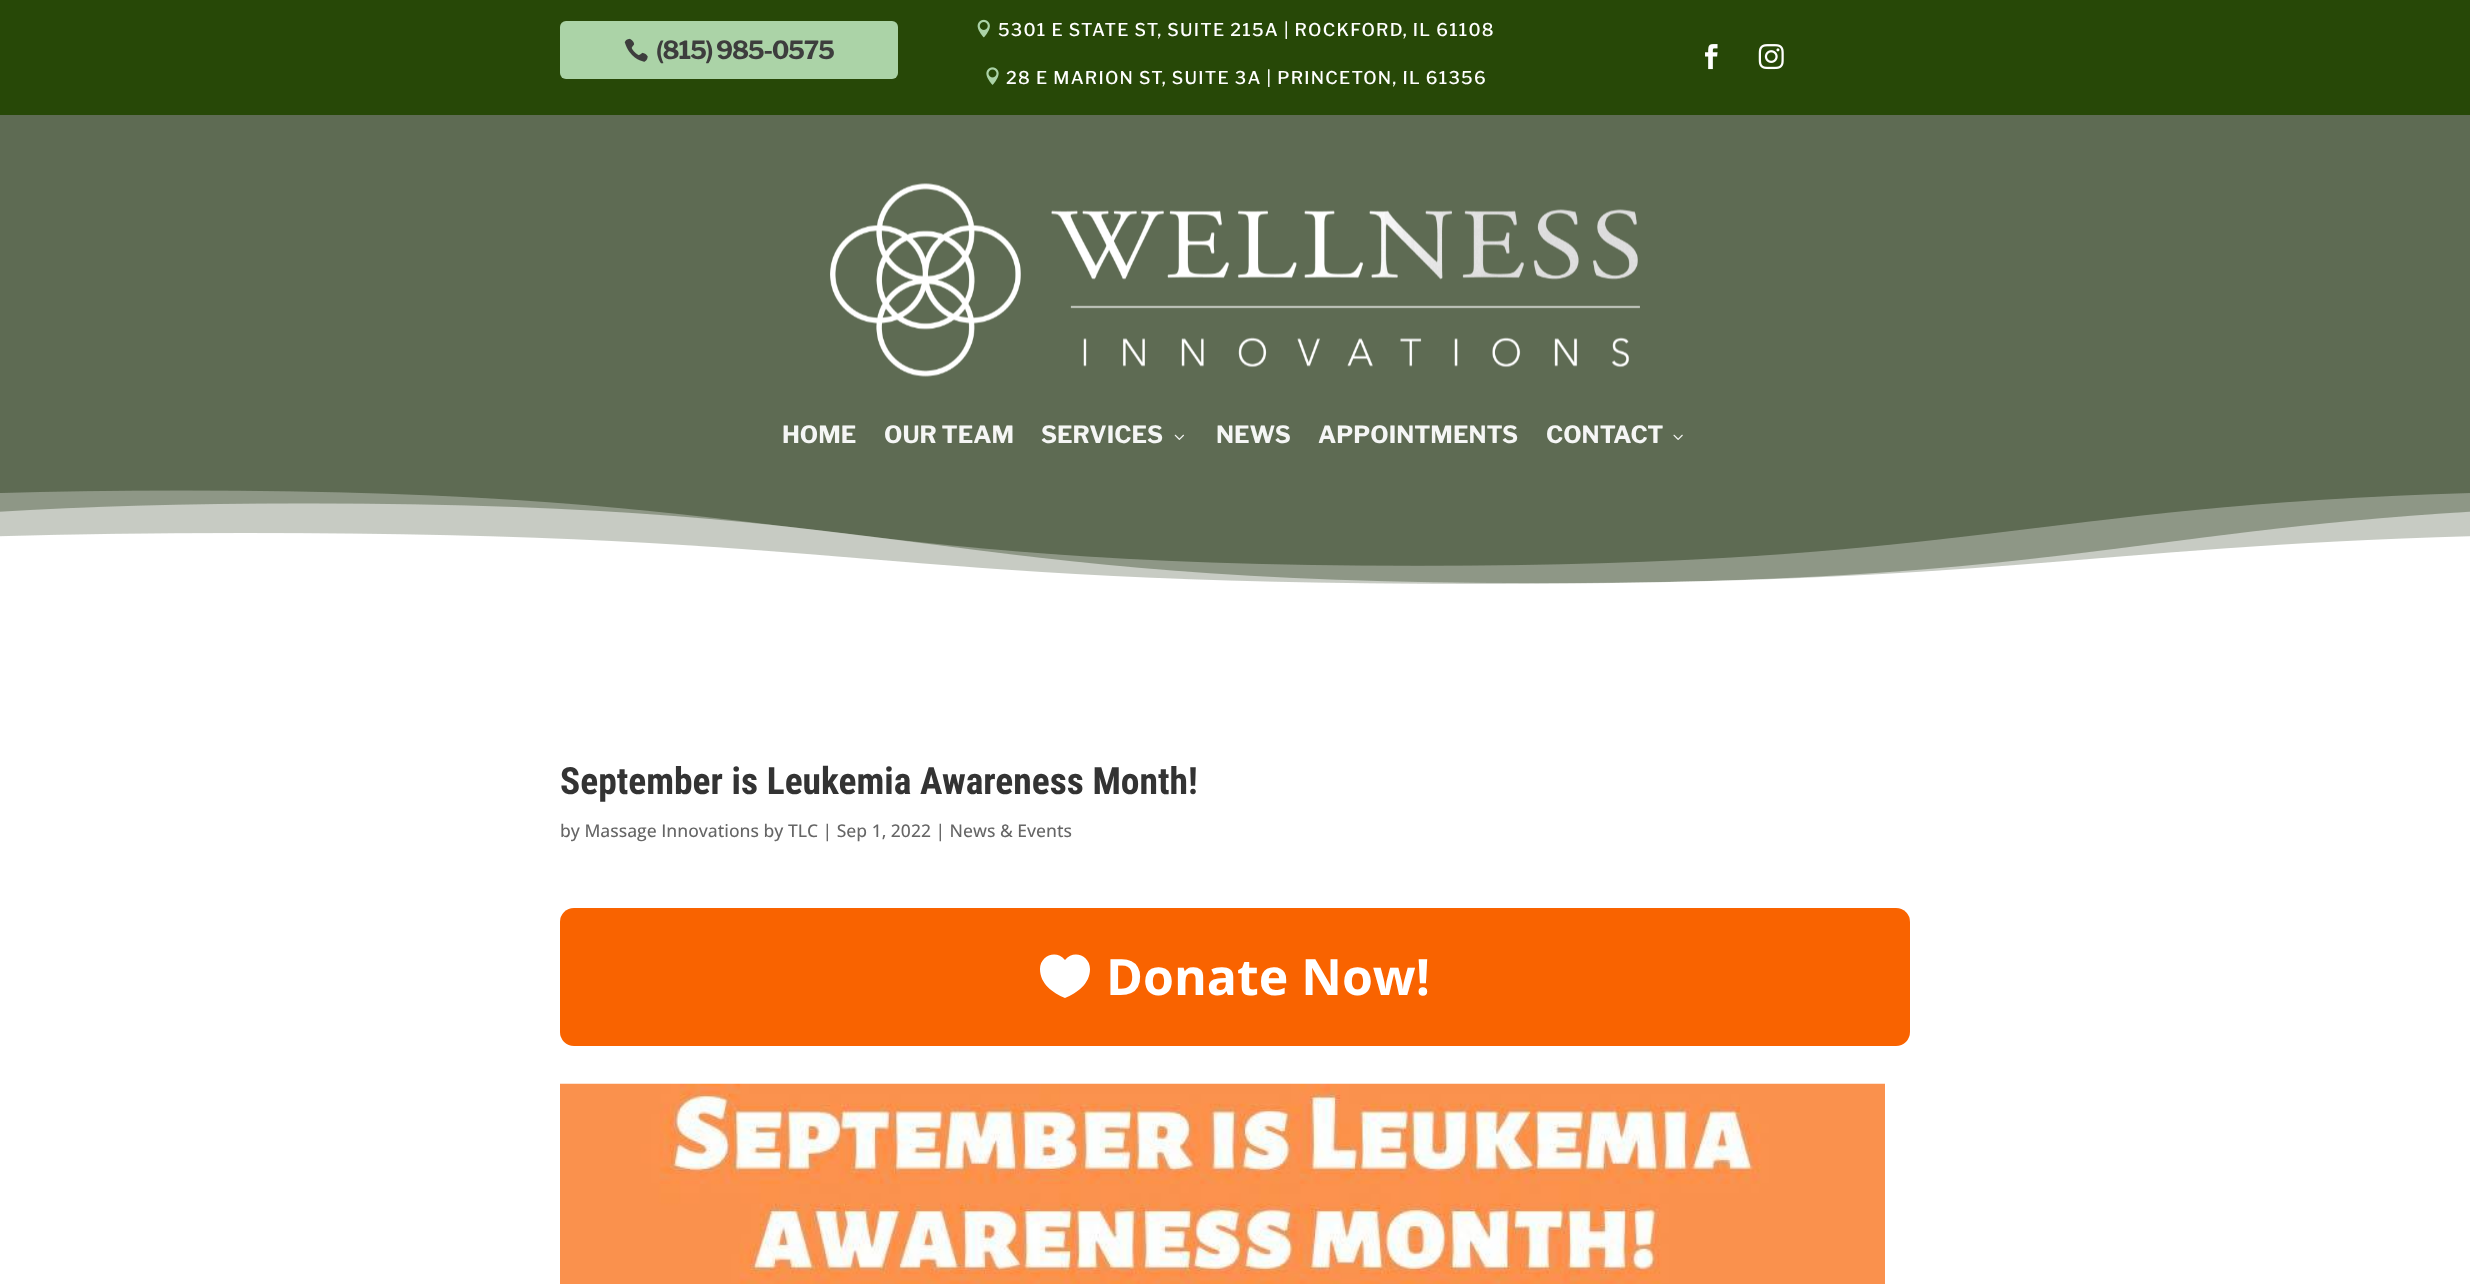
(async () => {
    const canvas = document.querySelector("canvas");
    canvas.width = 2470;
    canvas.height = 1284;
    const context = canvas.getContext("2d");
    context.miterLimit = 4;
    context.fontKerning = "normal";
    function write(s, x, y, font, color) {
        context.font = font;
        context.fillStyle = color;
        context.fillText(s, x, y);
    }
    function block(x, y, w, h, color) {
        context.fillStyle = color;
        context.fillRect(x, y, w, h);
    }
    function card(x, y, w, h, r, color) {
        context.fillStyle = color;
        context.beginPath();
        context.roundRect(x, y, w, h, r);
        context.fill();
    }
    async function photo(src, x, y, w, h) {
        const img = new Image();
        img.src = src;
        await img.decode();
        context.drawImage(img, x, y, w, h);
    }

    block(0, 0, 2470, 1284, "rgb(255, 255, 255)");
    block(0, 0, 2470, 115, "rgb(39, 72, 7)");
    card(560, 21, 338, 58, 6, "rgb(171, 211, 167)");
    await photo("media/1.png", 624, 38, 24, 24);
    context.letterSpacing = "-1.25px";
    write("(815) 985-0575", 656, 59, "bold 25px Libre Franklin", "rgb(61, 61, 61)");
    await photo("media/2.png", 977, 19, 13, 19);
    context.letterSpacing = "1.25px";
    write("5301 E STATE ST, SUITE 215A | ROCKFORD, IL 61108", 998, 36, "500 17.5px Libre Franklin", "rgb(255, 255, 255)");
    await photo("media/3.png", 986, 67, 13, 18);
    write("28 E MARION ST, SUITE 3A | PRINCETON, IL 61356", 1006, 84, "500 17.5px Libre Franklin", "rgb(255, 255, 255)");
    await photo("media/4.png", 1705, 44, 13, 26);
    await photo("media/5.png", 1758, 44, 26, 26);
    block(0, 115, 2470, 469, "rgb(94, 107, 83)");
    await photo("media/6.png", 830, 183, 810, 194);
    context.letterSpacing = "0px";
    write("HOME", 782, 443, "bold 23.75px Libre Franklin", "rgb(245, 246, 245)");
    write("OUR TEAM", 884, 443, "bold 23.75px Libre Franklin", "rgb(245, 246, 245)");
    write("SERVICES", 1041, 443, "bold 23.75px Libre Franklin", "rgb(245, 246, 245)");
    await photo("media/7.png", 1174, 434, 10, 6);
    write("NEWS", 1216, 443, "bold 23.75px Libre Franklin", "rgb(245, 246, 245)");
    write("APPOINTMENTS", 1318, 443, "bold 23.75px Libre Franklin", "rgb(245, 246, 245)");
    write("CONTACT", 1546, 443, "bold 23.75px Libre Franklin", "rgb(245, 246, 245)");
    await photo("media/8.png", 1673, 434, 10, 6);
    await photo("media/9.png", 0, 490, 2470, 125);
    write("September is Leukemia Awareness Month!", 560, 794, "bold 37.5px Roboto Condensed", "rgb(51, 51, 51)");
    write("by Massage Innovations by TLC | Sep 1, 2022 | News & Events", 560, 837, "500 17.5px Open Sans", "rgb(102, 102, 102)");
    card(560, 908, 1350, 138, 14, "rgb(249, 99, 0)");
    context.fillStyle = "rgb(255, 255, 255)";
    context.beginPath();
    context.moveTo(1090, 969);
    context.bezierCurveTo(1090, 956, 1074, 949, 1065, 960);
    context.bezierCurveTo(1056, 949, 1040, 956, 1040, 969);
    context.bezierCurveTo(1040, 984, 1053, 993, 1065, 998);
    context.bezierCurveTo(1077, 993, 1090, 984, 1090, 969);
    context.closePath();
    context.fill();
    write("Donate Now!", 1106, 995, "bold 50px Open Sans", "rgb(255, 255, 255)");
    await photo("media/10.png", 560, 1083, 1325, 201);
})();
